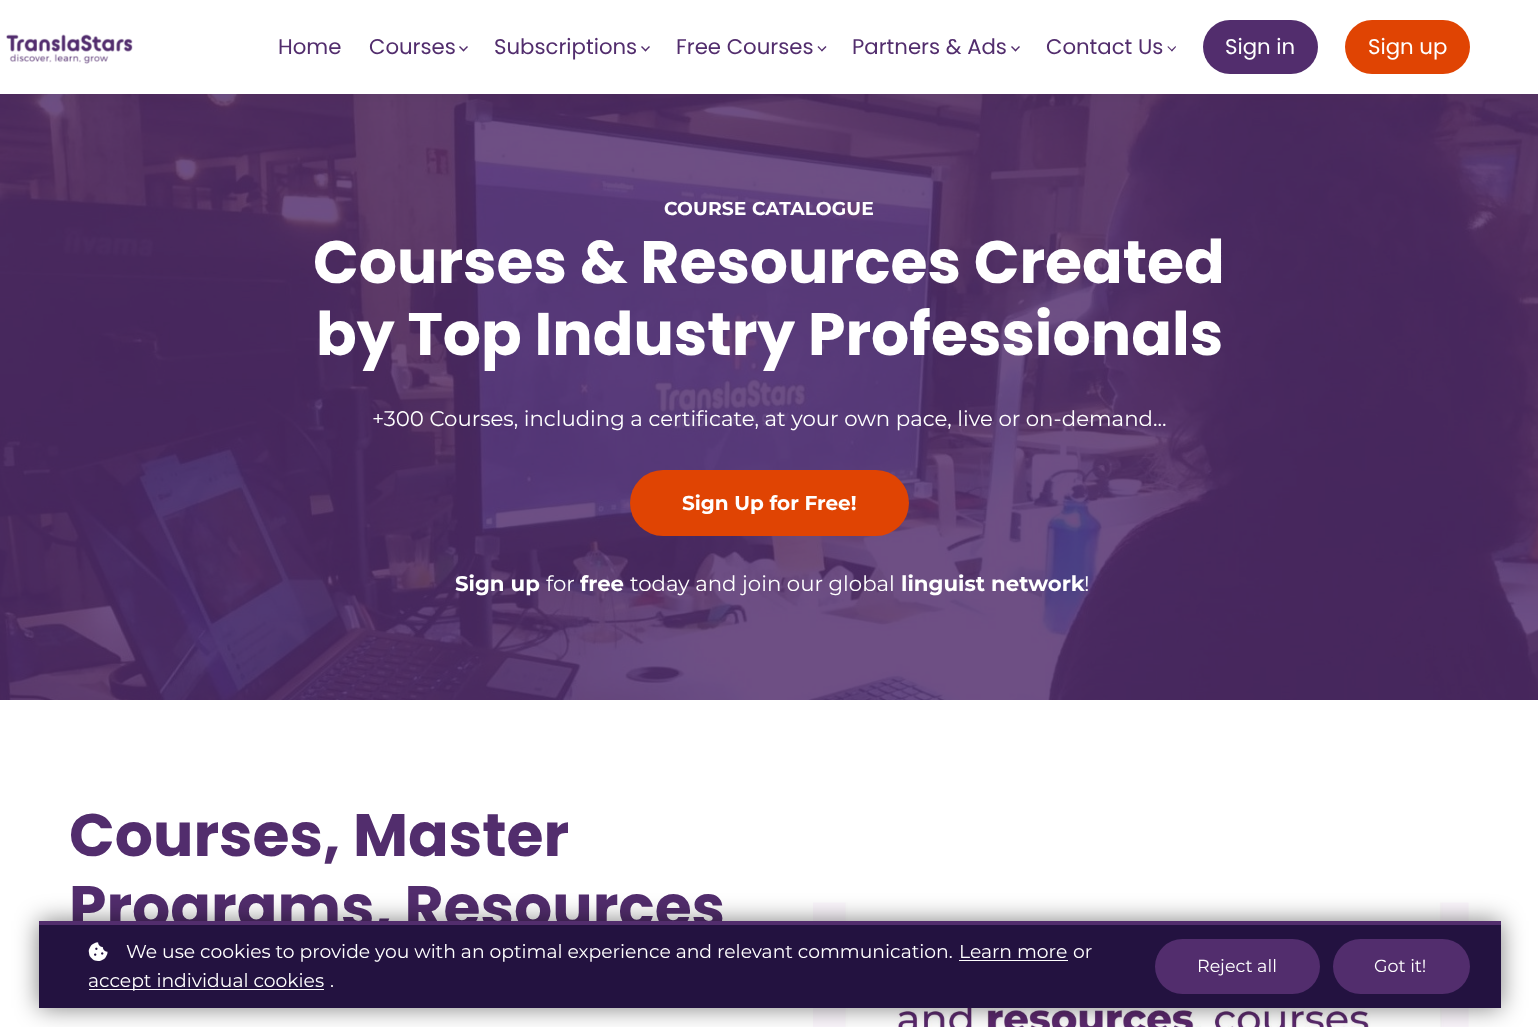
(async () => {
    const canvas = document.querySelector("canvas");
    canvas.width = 1538;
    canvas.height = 1027;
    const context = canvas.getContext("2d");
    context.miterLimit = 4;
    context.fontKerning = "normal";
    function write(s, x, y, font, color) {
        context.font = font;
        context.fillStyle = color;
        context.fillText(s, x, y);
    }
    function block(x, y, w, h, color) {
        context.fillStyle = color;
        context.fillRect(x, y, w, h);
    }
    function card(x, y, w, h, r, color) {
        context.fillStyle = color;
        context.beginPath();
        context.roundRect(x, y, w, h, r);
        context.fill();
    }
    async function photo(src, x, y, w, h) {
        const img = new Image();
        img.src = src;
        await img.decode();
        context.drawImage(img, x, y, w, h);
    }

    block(0, 0, 1538, 1027, "rgb(255, 255, 255)");
    await photo("media/2.png", 0, 94, 1538, 606);
    context.fillStyle = "rgba(0, 0, 0, 0.05)";
    context.filter = "blur(9.5px)";
    context.beginPath();
    context.rect(0, 0, 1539, 94);
    context.fill();
    context.filter = "none";
    block(0, 0, 1538, 94, "rgb(255, 255, 255)");
    await photo("media/1.png", 6, 34, 127, 30);
    write("Home", 278, 54, "21.25px Poppins", "rgb(82, 45, 109)");
    write("Courses", 369, 54, "21.25px Poppins", "rgb(82, 45, 109)");
    context.beginPath();
    context.moveTo(468, 47);
    context.lineTo(463.5, 51.5);
    context.lineTo(462.5, 50.5);
    context.lineTo(467, 46);
    context.closePath();
    context.fill();
    context.beginPath();
    context.moveTo(464.5, 50.5);
    context.lineTo(463.5, 51.5);
    context.lineTo(459, 47);
    context.lineTo(460, 46);
    context.closePath();
    context.fill();
    write("Subscriptions", 494, 54, "21.25px Poppins", "rgb(82, 45, 109)");
    context.beginPath();
    context.moveTo(650, 47);
    context.lineTo(645.5, 51.5);
    context.lineTo(644.5, 50.5);
    context.lineTo(649, 46);
    context.closePath();
    context.fill();
    context.beginPath();
    context.moveTo(646.5, 50.5);
    context.lineTo(645.5, 51.5);
    context.lineTo(641, 47);
    context.lineTo(642, 46);
    context.closePath();
    context.fill();
    write("Free Courses", 676, 54, "21.25px Poppins", "rgb(82, 45, 109)");
    context.beginPath();
    context.moveTo(826.5, 47);
    context.lineTo(822, 51.5);
    context.lineTo(821, 50.5);
    context.lineTo(825.5, 46);
    context.closePath();
    context.fill();
    context.beginPath();
    context.moveTo(822.5, 50.5);
    context.lineTo(822, 51.5);
    context.lineTo(817.5, 47);
    context.lineTo(818.5, 46);
    context.closePath();
    context.fill();
    write("Partners & Ads", 852, 54, "21.25px Poppins", "rgb(82, 45, 109)");
    context.beginPath();
    context.moveTo(1020, 47);
    context.lineTo(1015.5, 51.5);
    context.lineTo(1014.5, 50.5);
    context.lineTo(1019, 46);
    context.closePath();
    context.fill();
    context.beginPath();
    context.moveTo(1016.5, 50.5);
    context.lineTo(1015.5, 51.5);
    context.lineTo(1011, 47);
    context.lineTo(1012, 46);
    context.closePath();
    context.fill();
    write("Contact Us", 1046, 54, "21.25px Poppins", "rgb(82, 45, 109)");
    context.beginPath();
    context.moveTo(1176, 47);
    context.lineTo(1172, 51.5);
    context.lineTo(1171, 50.5);
    context.lineTo(1175.5, 46);
    context.closePath();
    context.fill();
    context.beginPath();
    context.moveTo(1172.5, 50.5);
    context.lineTo(1172, 51.5);
    context.lineTo(1167.5, 47);
    context.lineTo(1168, 46);
    context.closePath();
    context.fill();
    card(1203, 20, 115, 54, 27, "rgb(82, 45, 109)");
    write("Sign in", 1225, 54, "21.25px Poppins", "rgb(255, 255, 255)");
    card(1345, 20, 125, 54, 27, "rgb(224, 68, 3)");
    write("Sign up", 1368, 54, "21.25px Poppins", "rgb(255, 255, 255)");
    context.letterSpacing = "0.1px";
    write("COURSE CATALOGUE", 664, 215, "bold 18.75px Montserrat", "rgb(255, 255, 255)");
    context.letterSpacing = "0px";
    write("Courses & Resources Created", 313, 283, "bold 60px Poppins", "rgb(255, 255, 255)");
    write("by Top Industry Professionals", 316, 355, "bold 60px Poppins", "rgb(255, 255, 255)");
    write("+300 Courses, including a certificate, at your own pace, live or on-demand...", 372, 426, "21.25px Montserrat", "rgb(255, 255, 255)");
    card(630, 470, 279, 66, 33, "rgb(224, 68, 3)");
    write("Sign Up for Free!", 682, 510, "bold 20px Montserrat", "rgb(255, 255, 255)");
    write("Sign up", 455, 591, "bold 21.25px Montserrat", "rgb(255, 255, 255)");
    write("for", 546, 591, "21.25px Montserrat", "rgb(255, 255, 255)");
    write("free", 580, 591, "bold 21.25px Montserrat", "rgb(255, 255, 255)");
    write("today and join our global", 630, 591, "21.25px Montserrat", "rgb(255, 255, 255)");
    write("linguist network", 901, 591, "bold 21.25px Montserrat", "rgb(255, 255, 255)");
    write("!", 1084, 591, "21.25px Montserrat", "rgb(255, 255, 255)");
    write("Courses, Master", 69, 856, "bold 60px Poppins", "rgb(82, 45, 109)");
    write("Programs, Resources", 69, 928, "bold 60px Poppins", "rgb(82, 45, 109)");
    await photo("media/3.png", 813, 902, 656, 125);
    context.fillStyle = "rgba(0, 0, 0, 0.5)";
    context.filter = "blur(12.5px)";
    context.beginPath();
    context.rect(39, 921, 1462, 87);
    context.fill();
    context.filter = "none";
    block(39, 925, 1462, 83, "rgb(35, 18, 64)");
    block(39, 921, 1462, 4, "rgb(82, 45, 109)");
    await photo("media/4.png", 88, 942, 20, 19);
    write("We use cookies to provide you with an optimal experience and relevant communication.", 126, 958, "18.75px Montserrat", "rgb(255, 255, 255)");
    write("Learn more", 959, 958, "18.75px Montserrat", "rgb(255, 255, 255)");
    block(959, 960, 109, 1, "rgb(255, 255, 255)");
    write("or", 1073, 958, "18.75px Montserrat", "rgb(255, 255, 255)");
    block(89, 989, 235, 1, "rgb(255, 255, 255)");
    write("accept individual cookies", 88, 987, "18.75px Montserrat", "rgb(255, 255, 255)");
    write(".", 330, 987, "18.75px Montserrat", "rgb(255, 255, 255)");
    card(1155, 939, 165, 55, 27.5, "rgb(82, 45, 109)");
    write("Reject all", 1197, 972, "17.5px Montserrat", "rgb(255, 255, 255)");
    card(1333, 939, 137, 55, 27.5, "rgb(82, 45, 109)");
    write("Got it!", 1374, 972, "17.5px Montserrat", "rgb(255, 255, 255)");
})();
